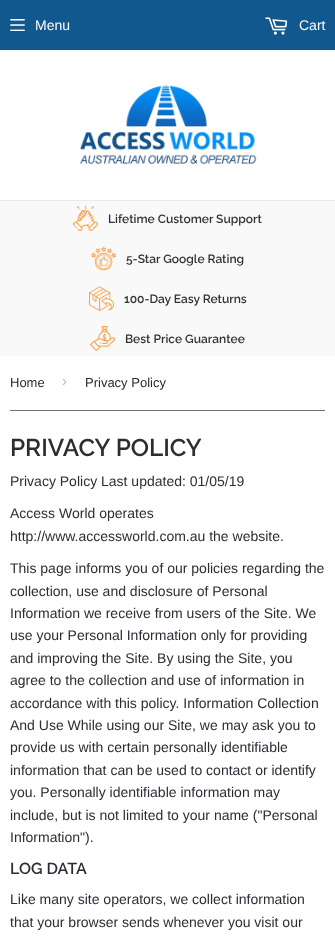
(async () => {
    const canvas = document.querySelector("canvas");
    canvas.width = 335;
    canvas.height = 942;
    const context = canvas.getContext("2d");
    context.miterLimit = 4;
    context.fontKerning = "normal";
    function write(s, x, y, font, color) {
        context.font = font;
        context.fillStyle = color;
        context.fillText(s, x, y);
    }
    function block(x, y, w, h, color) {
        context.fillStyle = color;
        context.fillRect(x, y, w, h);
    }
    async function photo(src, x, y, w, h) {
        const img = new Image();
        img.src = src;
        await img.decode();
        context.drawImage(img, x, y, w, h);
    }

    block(0, 0, 335, 942, "rgb(255, 255, 255)");
    block(0, 0, 335, 50, "rgb(17, 88, 143)");
    await photo("media/1.png", 10, 19, 15, 12);
    write("Menu", 35, 30, "14px Liberation Sans", "rgb(253, 253, 253)");
    await photo("media/2.png", 265, 17, 23, 18);
    write("Cart", 299, 30, "14px Liberation Sans", "rgb(253, 253, 253)");
    await photo("media/3.png", 78, 85, 180, 82);
    block(0, 201, 335, 155, "rgb(249, 249, 249)");
    block(0, 200, 335, 1, "rgb(234, 234, 234)");
    await photo("media/4.png", 73, 206, 25, 25);
    write("Lifetime Customer Support", 108, 223, "100 12px Raleway", "rgb(51, 51, 51)");
    await photo("media/5.png", 91, 246, 25, 25);
    write("5-Star Google Rating", 126, 263, "100 12px Raleway", "rgb(51, 51, 51)");
    await photo("media/6.png", 89, 286, 25, 25);
    write("100-Day Easy Returns", 124, 303, "100 12px Raleway", "rgb(51, 51, 51)");
    await photo("media/7.png", 90, 326, 25, 25);
    write("Best Price Guarantee", 125, 343, "100 12px Raleway", "rgb(51, 51, 51)");
    block(10, 410, 315, 1, "rgb(120, 112, 113)");
    write("Home", 10, 387, "13px Liberation Sans", "rgb(42, 45, 52)");
    write("›", 62, 386, "15px Liberation Sans", "rgb(187, 187, 187)");
    write("Privacy Policy", 85, 387, "13px Liberation Sans", "rgb(42, 45, 52)");
    write("PRIVACY POLICY", 10, 456, "100 24.25px Raleway", "rgb(42, 45, 52)");
    write("Privacy Policy Last updated: 01/05/19", 10, 486, "14px Liberation Sans", "rgb(42, 45, 52)");
    write("Access World operates", 10, 518, "14px Liberation Sans", "rgb(42, 45, 52)");
    write("http://www.accessworld.com.au the website.", 10, 541, "14px Liberation Sans", "rgb(42, 45, 52)");
    write("This page informs you of our policies regarding the", 10, 573, "14px Liberation Sans", "rgb(42, 45, 52)");
    write("collection, use and disclosure of Personal", 10, 596, "14px Liberation Sans", "rgb(42, 45, 52)");
    write("Information we receive from users of the Site. We", 10, 618, "14px Liberation Sans", "rgb(42, 45, 52)");
    write("use your Personal Information only for providing", 10, 640, "14px Liberation Sans", "rgb(42, 45, 52)");
    write("and improving the Site. By using the Site, you", 10, 663, "14px Liberation Sans", "rgb(42, 45, 52)");
    write("agree to the collection and use of information in", 10, 685, "14px Liberation Sans", "rgb(42, 45, 52)");
    write("accordance with this policy. Information Collection", 10, 708, "14px Liberation Sans", "rgb(42, 45, 52)");
    write("And Use While using our Site, we may ask you to", 10, 730, "14px Liberation Sans", "rgb(42, 45, 52)");
    write("provide us with certain personally identifiable", 10, 752, "14px Liberation Sans", "rgb(42, 45, 52)");
    write("information that can be used to contact or identify", 10, 775, "14px Liberation Sans", "rgb(42, 45, 52)");
    write("you. Personally identifiable information may", 10, 797, "14px Liberation Sans", "rgb(42, 45, 52)");
    write("include, but is not limited to your name (\"Personal", 10, 820, "14px Liberation Sans", "rgb(42, 45, 52)");
    write("Information\").", 10, 842, "14px Liberation Sans", "rgb(42, 45, 52)");
    write("LOG DATA", 10, 874, "100 16px Raleway", "rgb(42, 45, 52)");
    write("Like many site operators, we collect information", 10, 904, "14px Liberation Sans", "rgb(42, 45, 52)");
    write("that your browser sends whenever you visit our", 10, 927, "14px Liberation Sans", "rgb(42, 45, 52)");
})();
